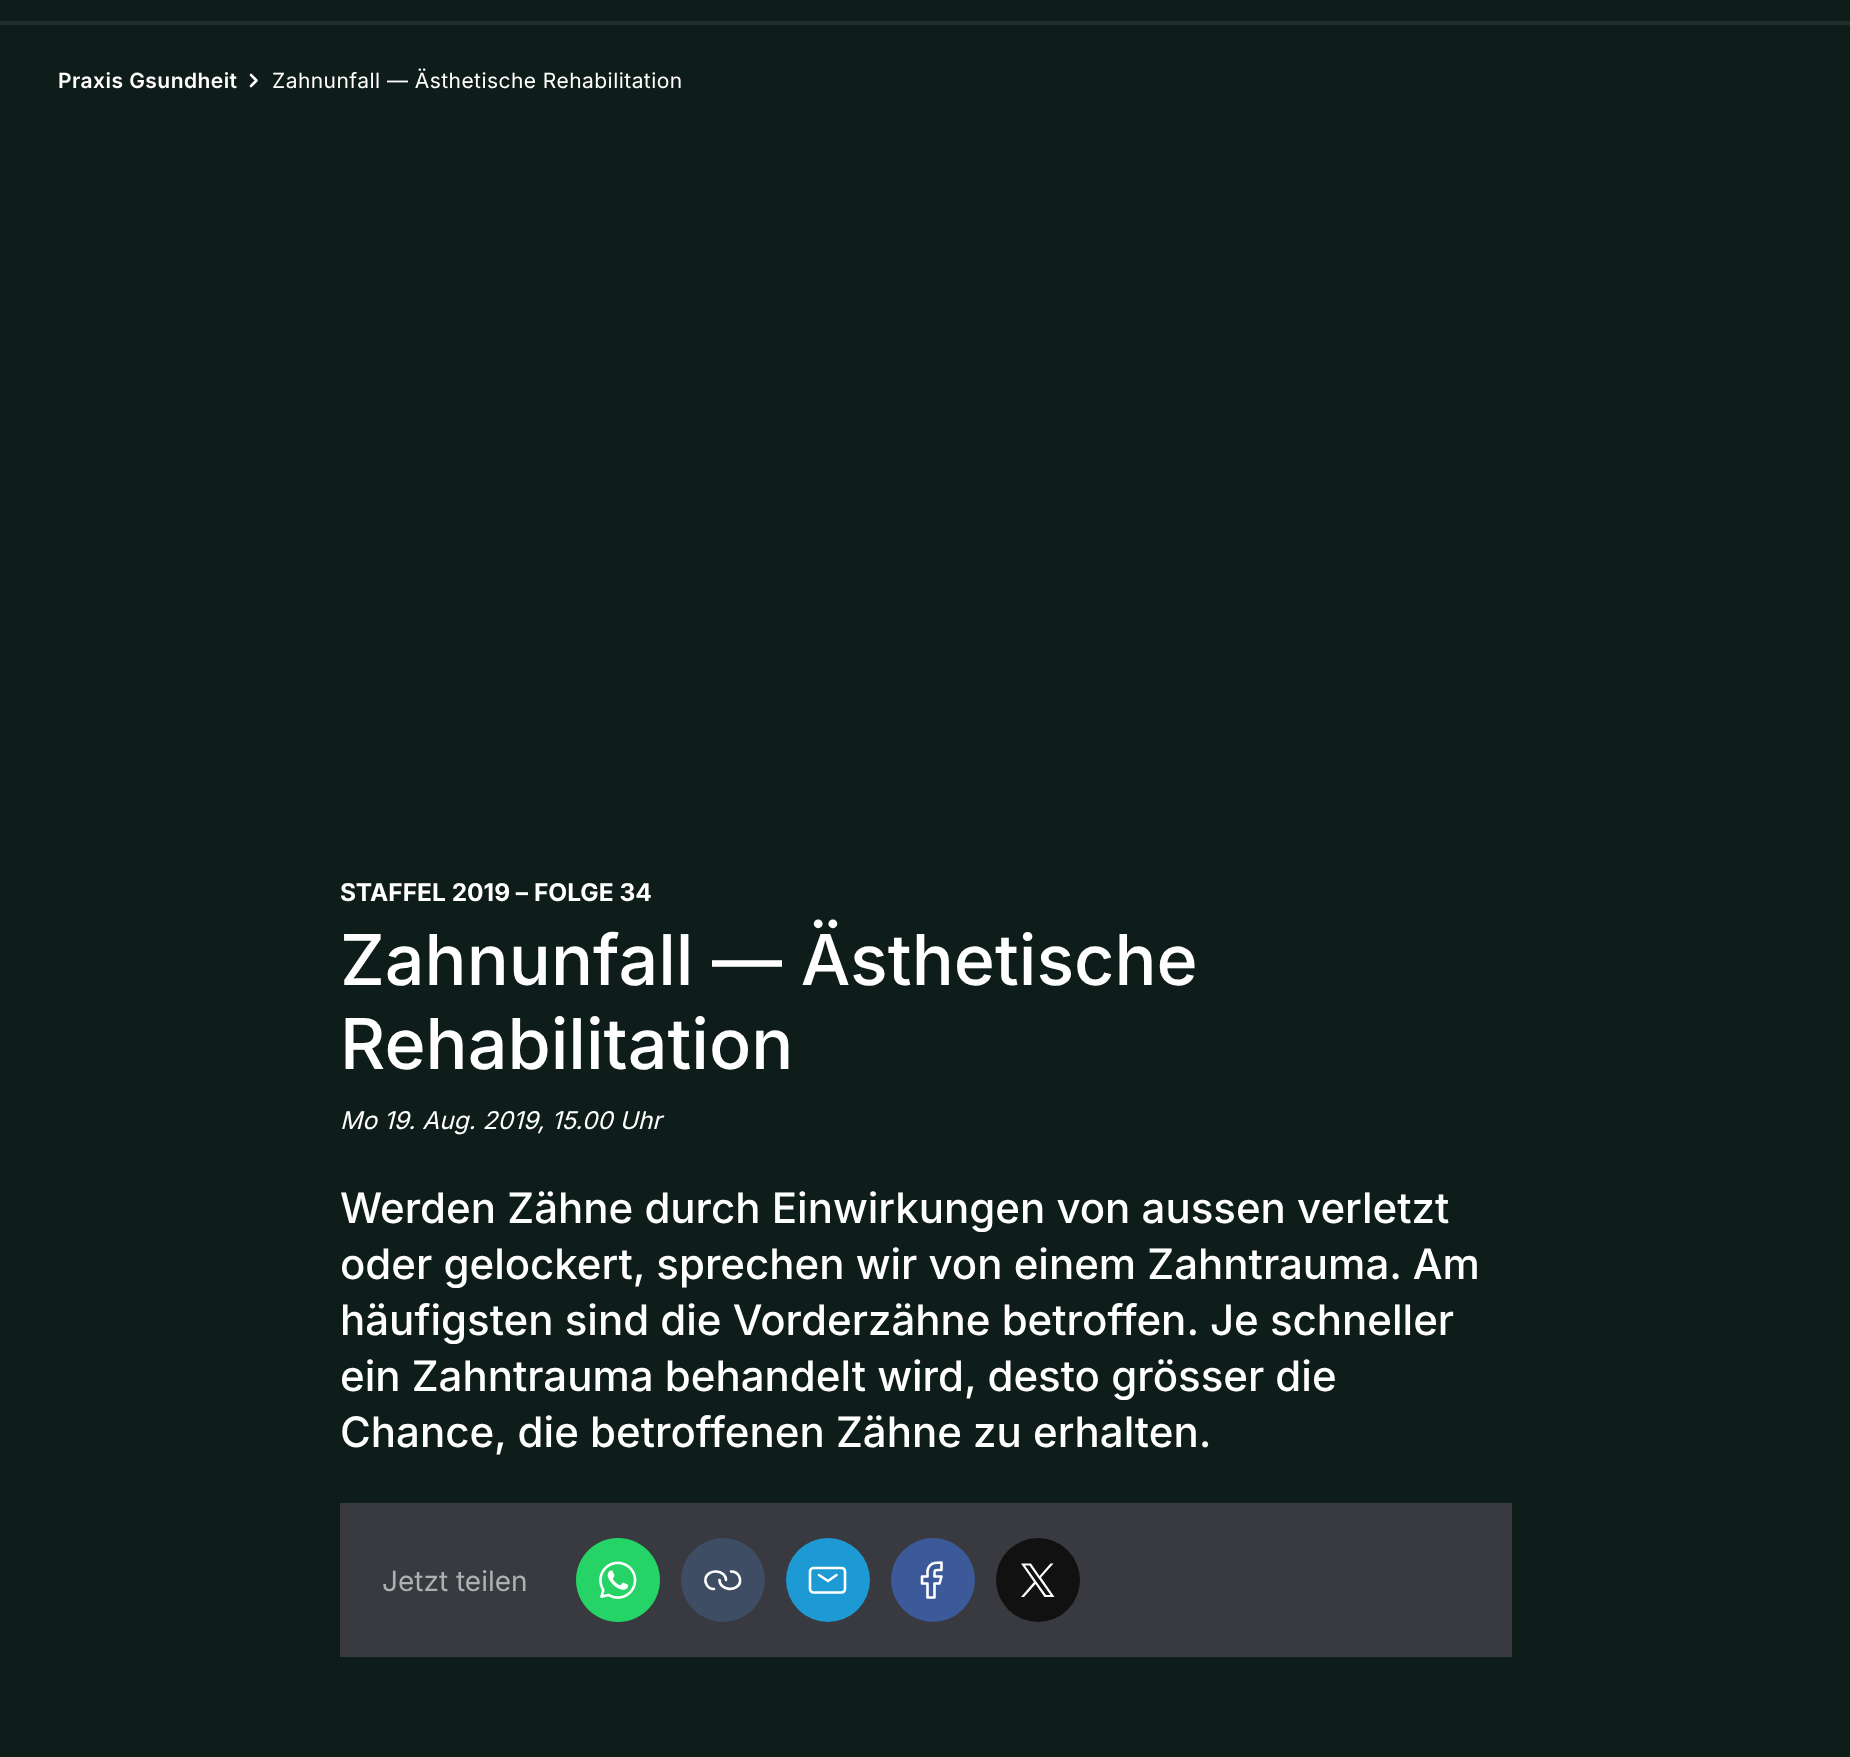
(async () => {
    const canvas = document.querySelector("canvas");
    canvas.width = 1850;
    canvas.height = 1757;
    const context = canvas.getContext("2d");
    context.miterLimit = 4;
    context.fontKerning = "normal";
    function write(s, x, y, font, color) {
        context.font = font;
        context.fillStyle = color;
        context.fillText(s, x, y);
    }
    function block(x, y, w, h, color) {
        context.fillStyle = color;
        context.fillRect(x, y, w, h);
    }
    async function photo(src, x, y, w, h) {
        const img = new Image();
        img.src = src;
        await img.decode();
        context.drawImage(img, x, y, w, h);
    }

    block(0, 0, 1850, 1757, "rgb(14, 28, 26)");
    block(0, 21, 1850, 4, "rgb(33, 46, 44)");
    context.letterSpacing = "0.45px";
    write("Praxis Gsundheit", 58, 88, "600 21px Inter", "rgb(255, 255, 255)");
    context.beginPath();
    context.moveTo(251, 86);
    context.lineTo(256.5, 80.5);
    context.lineTo(251, 75);
    context.strokeStyle = "rgb(255, 255, 255)";
    context.lineWidth = 2.6;
    context.lineCap = "round";
    context.lineJoin = "round";
    context.stroke();
    write("Zahnunfall — Ästhetische Rehabilitation", 272, 88, "21px Inter", "rgb(255, 255, 255)");
    context.letterSpacing = "0px";
    write("STAFFEL 2019 – FOLGE 34", 340, 901, "bold 24.5px Inter", "rgb(255, 255, 255)");
    write("Zahnunfall — Ästhetische", 340, 985, "500 70px Inter", "rgb(255, 255, 255)");
    write("Rehabilitation", 340, 1069, "500 70px Inter", "rgb(255, 255, 255)");
    write("Mo 19. Aug. 2019, 15.00 Uhr", 340, 1129, "italic 24.5px Inter", "rgb(255, 255, 255)");
    write("Werden Zähne durch Einwirkungen von aussen verletzt", 340, 1223, "500 42px Inter", "rgb(255, 255, 255)");
    write("oder gelockert, sprechen wir von einem Zahntrauma. Am", 340, 1279, "500 42px Inter", "rgb(255, 255, 255)");
    write("häufigsten sind die Vorderzähne betroffen. Je schneller", 340, 1335, "500 42px Inter", "rgb(255, 255, 255)");
    write("ein Zahntrauma behandelt wird, desto grösser die", 340, 1391, "500 42px Inter", "rgb(255, 255, 255)");
    write("Chance, die betroffenen Zähne zu erhalten.", 340, 1447, "500 42px Inter", "rgb(255, 255, 255)");
    block(340, 1503, 1172, 154, "rgb(56, 58, 63)");
    write("Jetzt teilen", 382, 1591, "28px Inter", "rgb(175, 176, 178)");
    await photo("media/1.png", 576, 1538, 84, 84);
    context.fillStyle = "rgb(62, 77, 99)";
    context.beginPath();
    context.arc(723, 1580, 42, 0, Math.PI * 2);
    context.fill();
    context.beginPath();
    context.moveTo(726, 1580);
    context.bezierCurveTo(726, 1569.5, 707.5, 1568.5, 705.5, 1578.5);
    context.bezierCurveTo(705, 1580.5, 705.5, 1582.5, 706.5, 1584.5);
    context.bezierCurveTo(708, 1587.5, 711, 1589, 714, 1589);
    context.moveTo(719.5, 1580);
    context.bezierCurveTo(719.5, 1591, 738, 1592, 740, 1582);
    context.bezierCurveTo(740.5, 1580, 740, 1578, 739, 1576);
    context.bezierCurveTo(737.5, 1573, 734.5, 1571.5, 731, 1571.5);
    context.stroke();
    context.fillStyle = "rgb(29, 154, 211)";
    context.beginPath();
    context.arc(828, 1580, 42, 0, Math.PI * 2);
    context.fill();
    context.beginPath();
    context.moveTo(819, 1575);
    context.lineTo(828, 1581);
    context.lineTo(836.5, 1575);
    context.stroke();
    context.beginPath();
    context.moveTo(810, 1589);
    context.lineTo(810, 1571.5);
    context.bezierCurveTo(810, 1569.5, 812, 1568, 813.5, 1568);
    context.lineTo(841.5, 1568);
    context.bezierCurveTo(843.5, 1568, 845, 1569.5, 845, 1571.5);
    context.lineTo(845, 1589);
    context.bezierCurveTo(845, 1591, 843.5, 1592.5, 841.5, 1592.5);
    context.lineTo(813.5, 1592.5);
    context.bezierCurveTo(812, 1592.5, 810, 1591, 810, 1589);
    context.closePath();
    context.lineCap = "butt";
    context.lineJoin = "miter";
    context.stroke();
    context.fillStyle = "rgb(60, 90, 153)";
    context.beginPath();
    context.arc(933, 1580, 42, 0, Math.PI * 2);
    context.fill();
    context.beginPath();
    context.moveTo(941.5, 1562.5);
    context.lineTo(934.5, 1563);
    context.bezierCurveTo(931, 1563.5, 928, 1567, 927.5, 1570.5);
    context.lineTo(927.5, 1576.5);
    context.lineTo(922, 1576.5);
    context.lineTo(922, 1583.5);
    context.lineTo(927.5, 1583.5);
    context.lineTo(927.5, 1597.5);
    context.lineTo(934.5, 1597.5);
    context.lineTo(934.5, 1583.5);
    context.lineTo(939.5, 1583.5);
    context.lineTo(941.5, 1576.5);
    context.lineTo(934.5, 1576.5);
    context.bezierCurveTo(934.5, 1569, 933.5, 1570, 941.5, 1570);
    context.closePath();
    context.lineCap = "round";
    context.lineJoin = "round";
    context.stroke();
    context.fillStyle = "rgb(17, 17, 17)";
    context.beginPath();
    context.arc(1038, 1580, 42, 0, Math.PI * 2);
    context.fill();
    context.fillStyle = "rgb(255, 255, 255)";
    context.beginPath();
    context.moveTo(1041, 1577.5);
    context.lineTo(1053.5, 1563.5);
    context.lineTo(1050.5, 1563.5);
    context.lineTo(1039.5, 1576);
    context.lineTo(1031, 1563.5);
    context.lineTo(1021, 1563.5);
    context.lineTo(1034, 1582);
    context.lineTo(1021, 1597);
    context.lineTo(1024, 1597);
    context.lineTo(1035.5, 1584);
    context.lineTo(1044.5, 1597);
    context.lineTo(1054.5, 1597);
    context.closePath();
    context.moveTo(1037, 1582.5);
    context.lineTo(1025, 1565.5);
    context.lineTo(1029.5, 1565.5);
    context.lineTo(1050.5, 1595);
    context.lineTo(1046, 1595);
    context.closePath();
    context.fill();
})();
